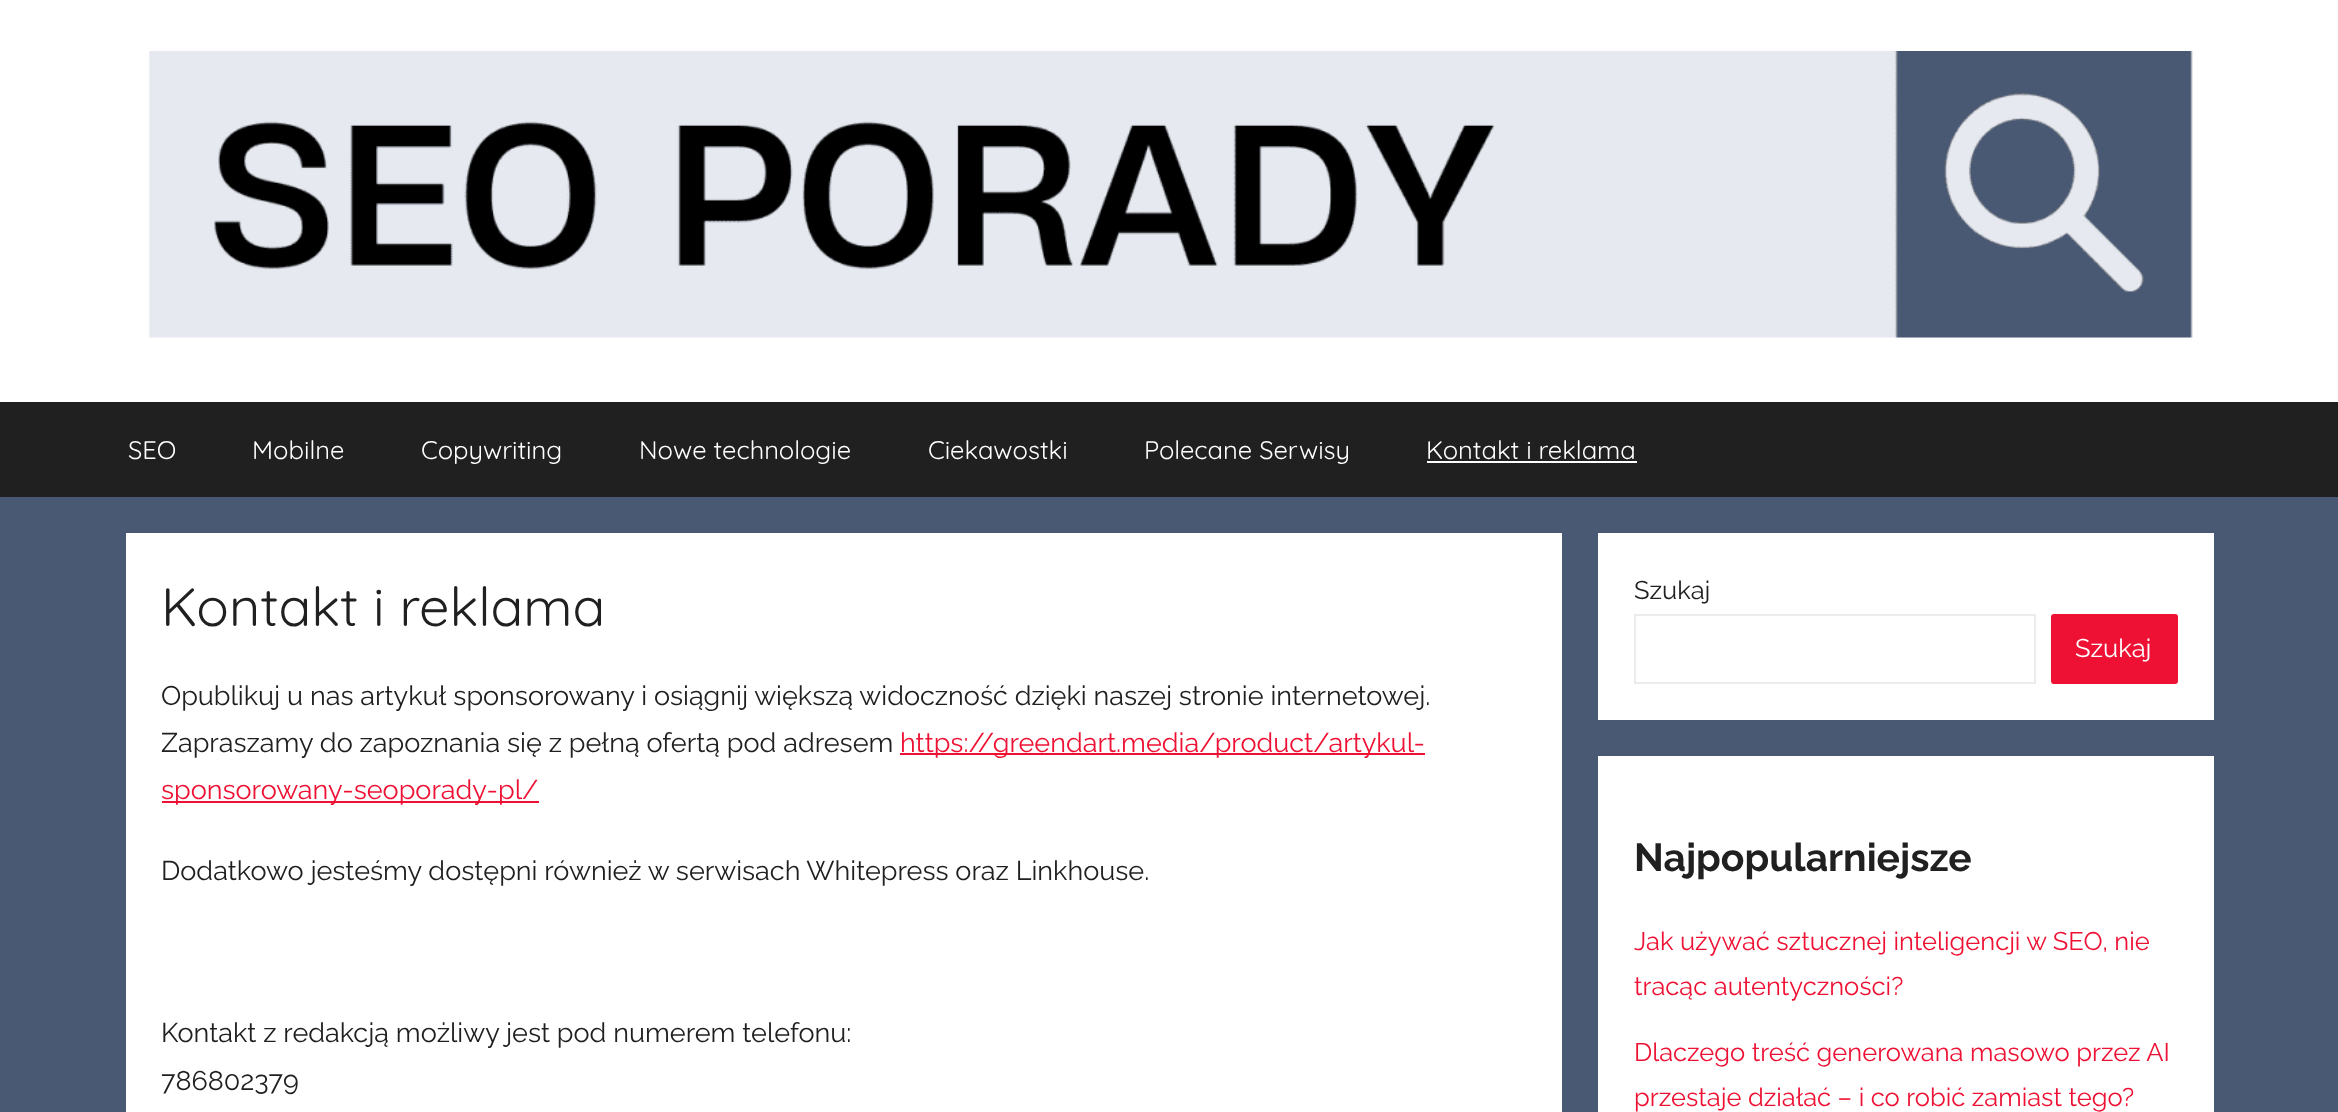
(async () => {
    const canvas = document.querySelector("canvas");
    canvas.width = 2338;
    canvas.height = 1112;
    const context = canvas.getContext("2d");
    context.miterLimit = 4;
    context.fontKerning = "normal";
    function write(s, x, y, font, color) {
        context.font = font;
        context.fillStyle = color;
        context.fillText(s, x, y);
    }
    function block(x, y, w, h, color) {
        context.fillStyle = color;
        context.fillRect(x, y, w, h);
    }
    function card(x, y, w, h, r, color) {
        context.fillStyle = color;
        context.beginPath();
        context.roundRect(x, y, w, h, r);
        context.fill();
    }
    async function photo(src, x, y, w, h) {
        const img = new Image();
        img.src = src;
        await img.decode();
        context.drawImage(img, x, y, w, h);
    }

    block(0, 0, 2338, 1112, "rgb(73, 88, 115)");
    block(0, 0, 2338, 402, "rgb(255, 255, 255)");
    await photo("media/1.png", 149, 51, 2044, 287);
    block(0, 402, 2338, 95, "rgb(32, 32, 32)");
    write("SEO", 128, 459, "25.5px Quicksand", "rgb(255, 255, 255)");
    write("Mobilne", 252, 459, "25.5px Quicksand", "rgb(255, 255, 255)");
    write("Copywriting", 421, 459, "25.5px Quicksand", "rgb(255, 255, 255)");
    write("Nowe technologie", 639, 459, "25.5px Quicksand", "rgb(255, 255, 255)");
    write("Ciekawostki", 928, 459, "25.5px Quicksand", "rgb(255, 255, 255)");
    write("Polecane Serwisy", 1144, 459, "25.5px Quicksand", "rgb(255, 255, 255)");
    write("Kontakt i reklama", 1426, 459, "25.5px Quicksand", "rgb(255, 255, 255)");
    block(1427, 461, 210, 2, "rgb(255, 255, 255)");
    block(126, 533, 1436, 579, "rgb(255, 255, 255)");
    write("Kontakt i reklama", 161, 626, "54px Quicksand", "rgb(32, 32, 32)");
    write("Opublikuj u nas artykuł sponsorowany i osiągnij większą widoczność dzięki naszej stronie internetowej.", 161, 705, "27px Raleway", "rgb(32, 32, 32)");
    write("Zapraszamy do zapoznania się z pełną ofertą pod adresem", 161, 752, "27px Raleway", "rgb(32, 32, 32)");
    block(900, 753, 525, 2, "rgb(238, 17, 51)");
    write("https://greendart.media/product/artykul-", 900, 752, "27px Raleway", "rgb(238, 17, 51)");
    block(162, 801, 377, 2, "rgb(238, 17, 51)");
    write("sponsorowany-seoporady-pl/", 161, 799, "27px Raleway", "rgb(238, 17, 51)");
    write("Dodatkowo jesteśmy dostępni również w serwisach Whitepress oraz Linkhouse.", 161, 880, "27px Raleway", "rgb(32, 32, 32)");
    write("Kontakt z redakcją możliwy jest pod numerem telefonu:", 161, 1042, "27px Raleway", "rgb(32, 32, 32)");
    write("786802379", 161, 1090, "27px Raleway", "rgb(32, 32, 32)");
    block(1598, 533, 616, 187, "rgb(255, 255, 255)");
    write("Szukaj", 1634, 599, "25.5px Raleway", "rgb(32, 32, 32)");
    context.strokeStyle = "rgb(236, 236, 236)";
    context.lineWidth = 2;
    context.strokeRect(1635, 615, 400, 68);
    card(2051, 614, 127, 70, 3, "rgb(238, 17, 51)");
    write("Szukaj", 2075, 657, "25.5px Raleway", "rgb(255, 255, 255)");
    block(1598, 756, 616, 356, "rgb(255, 255, 255)");
    write("Najpopularniejsze", 1634, 871, "bold 39px Raleway", "rgb(32, 32, 32)");
    write("Jak używać sztucznej inteligencji w SEO, nie", 1634, 950, "25.5px Raleway", "rgb(238, 17, 51)");
    write("tracąc autentyczności?", 1634, 995, "25.5px Raleway", "rgb(238, 17, 51)");
    write("Dlaczego treść generowana masowo przez AI", 1634, 1061, "25.5px Raleway", "rgb(238, 17, 51)");
    write("przestaje działać – i co robić zamiast tego?", 1634, 1106, "25.5px Raleway", "rgb(238, 17, 51)");
})();
